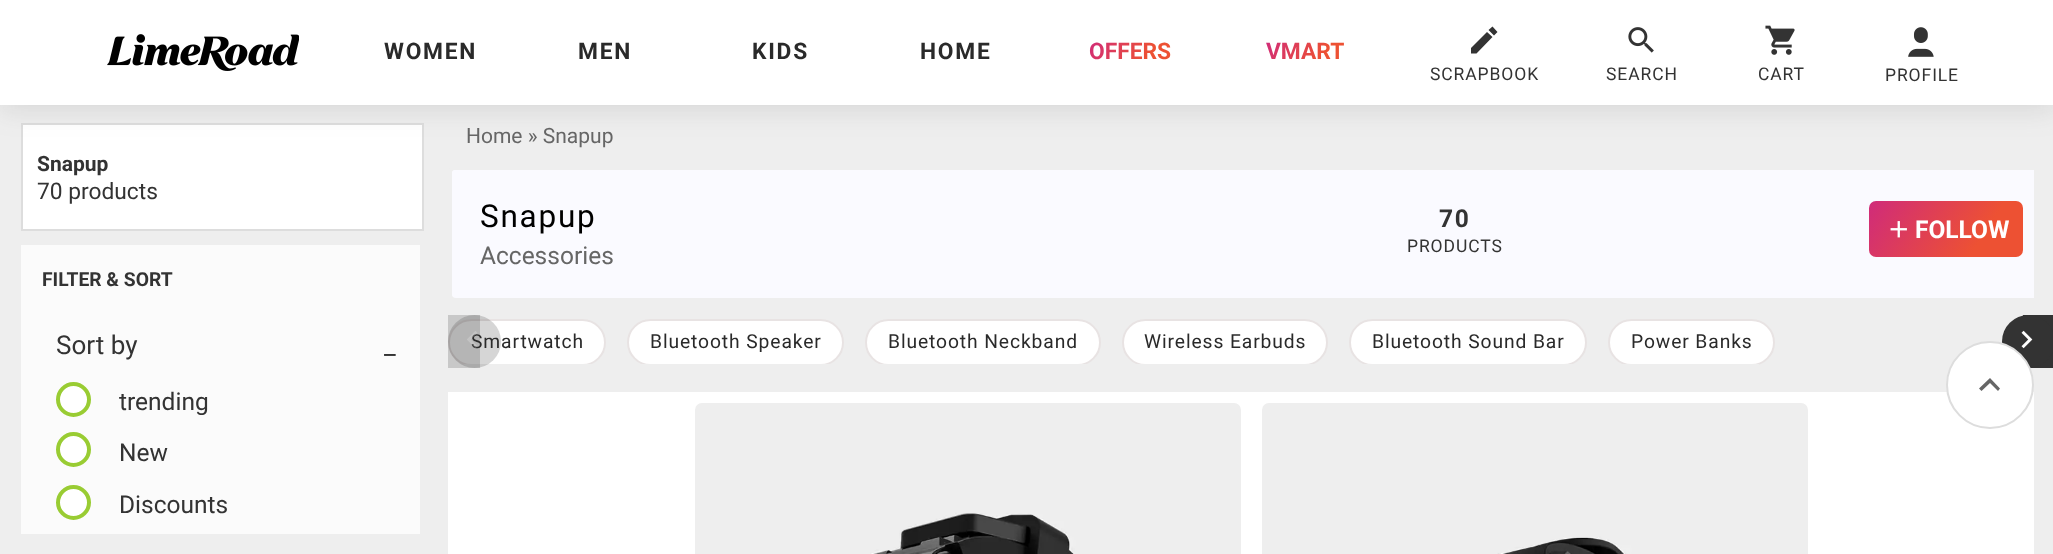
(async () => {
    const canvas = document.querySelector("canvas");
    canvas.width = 2053;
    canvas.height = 554;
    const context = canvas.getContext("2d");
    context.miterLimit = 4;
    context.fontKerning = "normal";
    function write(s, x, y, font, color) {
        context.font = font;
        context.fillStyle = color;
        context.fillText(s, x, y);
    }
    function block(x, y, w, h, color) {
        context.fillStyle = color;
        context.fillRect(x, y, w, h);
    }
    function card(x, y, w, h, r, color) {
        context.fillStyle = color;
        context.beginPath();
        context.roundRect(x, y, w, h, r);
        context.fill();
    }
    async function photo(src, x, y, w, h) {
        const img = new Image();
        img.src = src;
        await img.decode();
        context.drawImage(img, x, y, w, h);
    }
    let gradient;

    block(0, 0, 2053, 554, "rgb(238, 238, 238)");
    context.fillStyle = "rgb(255, 255, 255)";
    context.beginPath();
    context.rect(22, 124, 401, 106);
    context.fill();
    context.strokeStyle = "rgb(221, 221, 221)";
    context.lineWidth = 2;
    context.stroke();
    context.fillStyle = "rgba(85, 85, 85, 0.16)";
    context.filter = "blur(14px)";
    context.beginPath();
    context.rect(0, 4, 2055, 105);
    context.fill();
    context.filter = "none";
    block(0, 0, 2053, 105, "rgb(255, 255, 255)");
    await photo("media/1.png", 107, 34, 192, 37);
    context.letterSpacing = "1.75px";
    write("WOMEN", 384, 59, "bold 22.75px Roboto", "rgb(42, 42, 42)");
    write("MEN", 578, 59, "bold 22.75px Roboto", "rgb(42, 42, 42)");
    write("KIDS", 752, 59, "bold 22.75px Roboto", "rgb(42, 42, 42)");
    write("HOME", 920, 59, "bold 22.75px Roboto", "rgb(42, 42, 42)");
    context.letterSpacing = "0px";
    gradient = context.createLinearGradient(1092, 27, 1165, 74);
    gradient.addColorStop(0, "rgb(206, 41, 126)");
    gradient.addColorStop(0.73, "rgb(237, 81, 51)");
    context.fillStyle = gradient;
    context.fillText("OFFERS", 1089, 59);
    gradient = context.createLinearGradient(1269, 28, 1339, 73);
    gradient.addColorStop(0, "rgb(206, 41, 126)");
    gradient.addColorStop(0.73, "rgb(237, 81, 51)");
    context.fillStyle = gradient;
    context.fillText("VMART", 1266, 59);
    context.fillStyle = "rgb(51, 51, 51)";
    context.beginPath();
    context.moveTo(1471, 48);
    context.lineTo(1471, 53.5);
    context.lineTo(1476.5, 53.5);
    context.lineTo(1492.5, 37);
    context.lineTo(1487, 32);
    context.closePath();
    context.moveTo(1497.5, 32);
    context.lineTo(1492.5, 26.5);
    context.lineTo(1488.5, 30);
    context.lineTo(1494, 35.5);
    context.closePath();
    context.fill();
    context.letterSpacing = "0.9px";
    write("SCRAPBOOK", 1430, 80, "17.5px Roboto", "rgb(51, 51, 51)");
    await photo("media/2.png", 1628, 27, 26, 26);
    write("SEARCH", 1606, 80, "17.5px Roboto", "rgb(51, 51, 51)");
    await photo("media/3.png", 1765, 25, 30, 30);
    write("CART", 1758, 80, "17.5px Roboto", "rgb(51, 51, 51)");
    await photo("media/4.png", 1908, 27, 26, 30);
    write("PROFILE", 1885, 81, "17.5px Roboto", "rgb(51, 51, 51)");
    context.letterSpacing = "0px";
    write("Home » Snapup", 466, 143, "21px Roboto", "rgb(102, 102, 102)");
    block(448, 392, 1586, 162, "rgb(255, 255, 255)");
    write("Snapup", 37, 171, "bold 21px Roboto", "rgb(51, 51, 51)");
    write("70 products", 37, 199, "22.75px Roboto", "rgb(51, 51, 51)");
    context.beginPath();
    context.roundRect(697, 405, 542, 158, 5);
    context.strokeStyle = "rgb(238, 238, 238)";
    context.lineWidth = 4;
    context.stroke();
    await photo("media/5.png", 699, 407, 538, 147);
    context.beginPath();
    context.roundRect(1264, 405, 542, 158, 5);
    context.stroke();
    await photo("media/6.png", 1266, 407, 538, 147);
    context.fillStyle = "rgb(250, 250, 255)";
    context.beginPath();
    context.roundRect(450, 168, 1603, 131, 5);
    context.fill();
    context.stroke();
    card(452, 170, 1599, 128, 4, "rgb(250, 250, 255)");
    context.letterSpacing = "1.75px";
    write("Snapup", 480, 227, "31.5px Roboto", "rgb(0, 0, 0)");
    context.letterSpacing = "0px";
    write("Accessories", 480, 264, "24.5px Roboto", "rgb(102, 102, 102)");
    context.letterSpacing = "1.75px";
    write("70", 1439, 227, "bold 24.5px Roboto", "rgb(51, 51, 51)");
    context.letterSpacing = "0.9px";
    write("PRODUCTS", 1407, 252, "17.5px Roboto", "rgb(51, 51, 51)");
    gradient = context.createLinearGradient(1873, 182, 2013, 272);
    gradient.addColorStop(0, "rgb(206, 41, 126)");
    gradient.addColorStop(0.73, "rgb(237, 81, 51)");
    context.fillStyle = gradient;
    context.beginPath();
    context.roundRect(1869, 201, 154, 56, 7);
    context.fill();
    await photo("media/7.png", 1890, 221, 17, 17);
    context.letterSpacing = "0px";
    write("FOLLOW", 1915, 238, "bold 24.5px Roboto", "rgb(255, 255, 255)");
    block(2034, 166, 19, 135, "rgb(238, 238, 238)");
    context.fillStyle = "rgb(255, 255, 255)";
    context.beginPath();
    context.roundRect(449, 320, 156, 45, 22.5);
    context.fill();
    context.strokeStyle = "rgb(232, 227, 227)";
    context.lineWidth = 2;
    context.stroke();
    context.letterSpacing = "0.9px";
    write("Smartwatch", 471, 348, "19.25px Roboto", "rgb(42, 42, 42)");
    context.fillStyle = "rgb(255, 255, 255)";
    context.beginPath();
    context.roundRect(628, 320, 215, 45, 22.5);
    context.fill();
    context.stroke();
    context.beginPath();
    context.roundRect(866, 320, 234, 45, 22.5);
    context.fill();
    context.stroke();
    context.beginPath();
    context.roundRect(1123, 320, 204, 45, 22.5);
    context.fill();
    context.stroke();
    context.beginPath();
    context.roundRect(1350, 320, 236, 45, 22.5);
    context.fill();
    context.stroke();
    context.beginPath();
    context.roundRect(1609, 320, 165, 45, 22.5);
    context.fill();
    context.stroke();
    block(464, 364, 1295, 2, "rgb(238, 238, 238)");
    block(448, 315, 32, 53, "rgba(51, 51, 51, 0.2)");
    context.beginPath();
    context.arc(474.5, 341.5, 26.5, 0, Math.PI * 2);
    context.fill();
    await photo("media/8.png", 467, 331, 11, 17);
    block(2023, 315, 30, 53, "rgb(51, 51, 51)");
    context.beginPath();
    context.arc(2028.5, 341.5, 26.5, 0, Math.PI * 2);
    context.fill();
    await photo("media/9.png", 2021, 330, 12, 19);
    write("Bluetooth Speaker", 650, 348, "19.25px Roboto", "rgb(42, 42, 42)");
    write("Bluetooth Neckband", 888, 348, "19.25px Roboto", "rgb(42, 42, 42)");
    write("Wireless Earbuds", 1144, 348, "19.25px Roboto", "rgb(42, 42, 42)");
    write("Bluetooth Sound Bar", 1372, 348, "19.25px Roboto", "rgb(42, 42, 42)");
    write("Power Banks", 1631, 348, "19.25px Roboto", "rgb(42, 42, 42)");
    block(21, 245, 399, 289, "rgb(251, 251, 251)");
    context.letterSpacing = "0px";
    write("FILTER & SORT", 42, 286, "bold 19.25px Roboto", "rgb(51, 51, 51)");
    write("Sort by", 56, 354, "26px Roboto", "rgb(51, 51, 51)");
    write("_", 384, 354, "26px Roboto", "rgb(51, 51, 51)");
    context.fillStyle = "rgb(255, 255, 255)";
    context.beginPath();
    context.arc(73.5, 399.5, 15.5, 0, Math.PI * 2);
    context.fill();
    context.strokeStyle = "rgb(153, 204, 51)";
    context.lineWidth = 4;
    context.stroke();
    write("trending", 119, 410, "24.5px Roboto", "rgb(51, 51, 51)");
    context.fillStyle = "rgb(255, 255, 255)";
    context.beginPath();
    context.arc(73.5, 449.5, 15.5, 0, Math.PI * 2);
    context.fill();
    context.stroke();
    write("New", 119, 461, "24.5px Roboto", "rgb(51, 51, 51)");
    context.fillStyle = "rgb(255, 255, 255)";
    context.beginPath();
    context.arc(73.5, 502.5, 15.5, 0, Math.PI * 2);
    context.fill();
    context.stroke();
    write("Discounts", 119, 513, "24.5px Roboto", "rgb(51, 51, 51)");
    context.fillStyle = "rgb(255, 255, 255)";
    context.beginPath();
    context.arc(1990, 385, 43, 0, Math.PI * 2);
    context.fill();
    context.strokeStyle = "rgb(221, 221, 221)";
    context.lineWidth = 2;
    context.stroke();
    context.fillStyle = "rgb(102, 102, 102)";
    context.beginPath();
    context.moveTo(1981.5, 391);
    context.lineTo(1990, 383);
    context.lineTo(1998, 391);
    context.lineTo(2000, 388.5);
    context.lineTo(1990, 378);
    context.lineTo(1979, 388.5);
    context.closePath();
    context.fill();
})();
